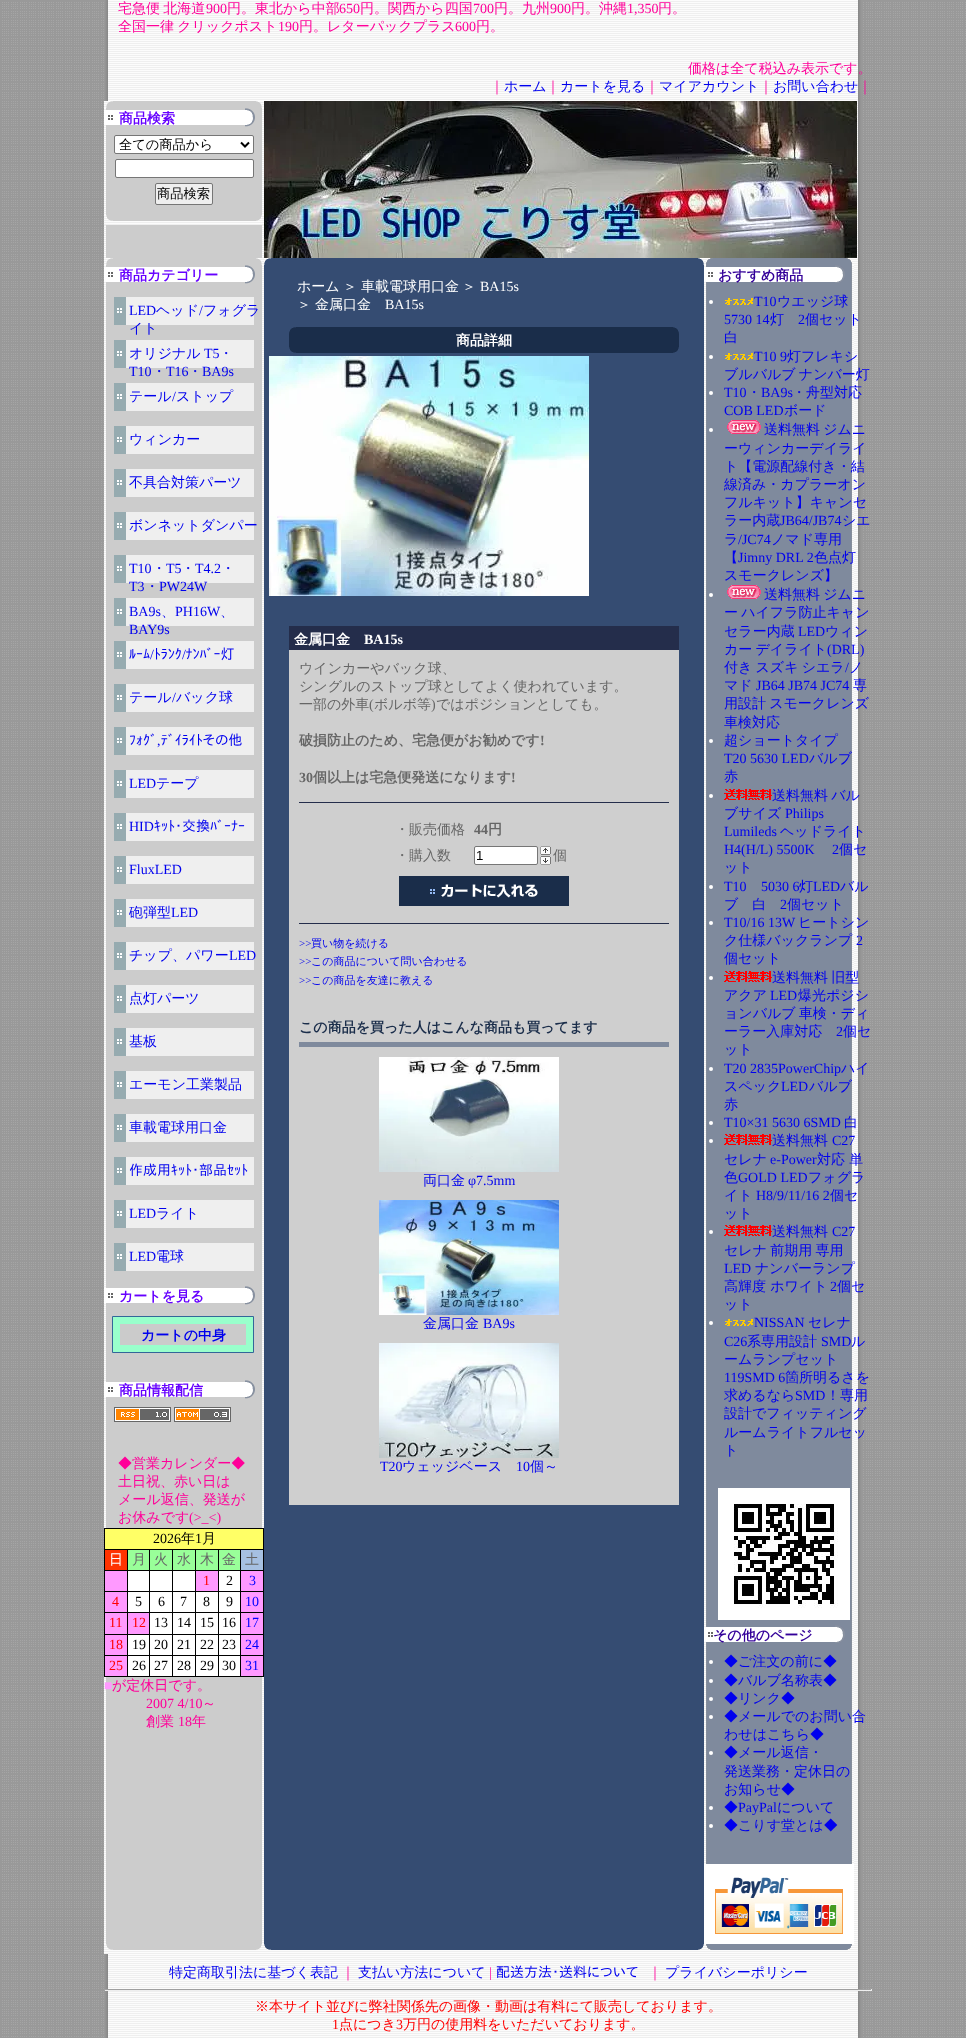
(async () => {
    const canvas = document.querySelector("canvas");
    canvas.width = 966;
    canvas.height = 2038;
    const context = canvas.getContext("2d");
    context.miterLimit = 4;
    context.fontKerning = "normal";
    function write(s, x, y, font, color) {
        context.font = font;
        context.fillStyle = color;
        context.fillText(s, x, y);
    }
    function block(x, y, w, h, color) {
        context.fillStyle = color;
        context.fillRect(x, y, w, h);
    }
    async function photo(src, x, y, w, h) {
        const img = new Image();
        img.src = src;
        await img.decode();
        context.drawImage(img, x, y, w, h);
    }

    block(0, 0, 966, 2038, "rgb(153, 153, 153)");
    await photo("media/1.png", 2, 2, 964, 2035);
    await photo("media/2.png", 105, 0, 757, 2038);
    context.wordSpacing = "-1px";
    write("宅急便 北海道", 118, 13, "500 14px WenQuanYi Zen Hei", "rgb(255, 0, 153)");
    context.wordSpacing = "0px";
    write("900", 206, 13, "14px Liberation Serif", "rgb(255, 0, 153)");
    write("円。東北から中部", 227, 13, "500 14px WenQuanYi Zen Hei", "rgb(255, 0, 153)");
    write("650", 339, 13, "14px Liberation Serif", "rgb(255, 0, 153)");
    write("円。関西から四国", 360, 13, "500 14px WenQuanYi Zen Hei", "rgb(255, 0, 153)");
    write("700", 473, 13, "14px Liberation Serif", "rgb(255, 0, 153)");
    write("円。九州", 494, 13, "500 14px WenQuanYi Zen Hei", "rgb(255, 0, 153)");
    write("900", 550, 13, "14px Liberation Serif", "rgb(255, 0, 153)");
    write("円。沖縄", 571, 13, "500 14px WenQuanYi Zen Hei", "rgb(255, 0, 153)");
    write("1,350", 627, 13, "14px Liberation Serif", "rgb(255, 0, 153)");
    write("円。", 658, 13, "500 14px WenQuanYi Zen Hei", "rgb(255, 0, 153)");
    context.wordSpacing = "-1px";
    write("全国一律 クリックポスト", 118, 31, "500 14px WenQuanYi Zen Hei", "rgb(255, 0, 153)");
    context.wordSpacing = "0px";
    write("190", 278, 31, "14px Liberation Serif", "rgb(255, 0, 153)");
    write("円。レターパックプラス", 299, 31, "500 14px WenQuanYi Zen Hei", "rgb(255, 0, 153)");
    write("600", 455, 31, "14px Liberation Serif", "rgb(255, 0, 153)");
    write("円。", 476, 31, "500 14px WenQuanYi Zen Hei", "rgb(255, 0, 153)");
    write("価格は全て税込み表示です。", 688, 73, "500 14px WenQuanYi Zen Hei", "rgb(255, 0, 153)");
    write("｜", 490, 91, "500 14px WenQuanYi Zen Hei", "rgb(255, 0, 153)");
    write("ホーム", 504, 91, "500 14px WenQuanYi Zen Hei", "rgb(0, 0, 238)");
    write("｜", 546, 91, "500 14px WenQuanYi Zen Hei", "rgb(255, 0, 153)");
    write("カートを見る", 560, 91, "500 14px WenQuanYi Zen Hei", "rgb(0, 0, 238)");
    write("｜", 645, 91, "500 14px WenQuanYi Zen Hei", "rgb(255, 0, 153)");
    write("マイアカウント", 659, 91, "500 14px WenQuanYi Zen Hei", "rgb(0, 0, 238)");
    write("｜", 759, 91, "500 14px WenQuanYi Zen Hei", "rgb(255, 0, 153)");
    write("お問い合わせ", 773, 91, "500 14px WenQuanYi Zen Hei", "rgb(0, 0, 238)");
    write("｜", 858, 91, "500 14px WenQuanYi Zen Hei", "rgb(255, 0, 153)");
    await photo("media/3.png", 104, 108, 158, 150);
    await photo("media/4.png", 104, 101, 160, 7);
    await photo("media/5.png", 104, 108, 151, 19);
    write("商品検索", 119, 123, "bold 14px WenQuanYi Zen Hei", "rgb(102, 0, 255)");
    context.fillStyle = "rgb(255, 255, 255)";
    context.beginPath();
    context.roundRect(114.5, 135.5, 139, 18, 1.5);
    context.fill();
    context.strokeStyle = "rgb(118, 118, 118)";
    context.stroke();
    context.beginPath();
    context.moveTo(241, 142.5);
    context.lineTo(245, 146.5);
    context.lineTo(249, 142.5);
    context.strokeStyle = "rgb(0, 0, 0)";
    context.lineWidth = 2;
    context.stroke();
    write("全ての商品から", 119, 149, "500 13.25px WenQuanYi Zen Hei", "rgb(0, 0, 0)");
    context.fillStyle = "rgb(255, 255, 255)";
    context.beginPath();
    context.roundRect(115.5, 159.5, 138, 18, 1.5);
    context.fill();
    context.strokeStyle = "rgb(118, 118, 118)";
    context.lineWidth = 1;
    context.stroke();
    context.fillStyle = "rgb(239, 239, 239)";
    context.beginPath();
    context.roundRect(155.5, 183.5, 57, 21, 1.5);
    context.fill();
    context.stroke();
    write("商品検索", 157, 198, "500 13.25px WenQuanYi Zen Hei", "rgb(0, 0, 0)");
    await photo("media/6.png", 104, 215, 160, 10);
    await photo("media/7.png", 264, 101, 593, 157);
    await photo("media/8.png", 104, 265, 160, 1679);
    await photo("media/4.png", 104, 258, 160, 7);
    await photo("media/5.png", 104, 265, 151, 19);
    write("商品カテゴリー", 119, 280, "bold 14px WenQuanYi Zen Hei", "rgb(102, 0, 255)");
    await photo("media/9.png", 114, 297, 140, 28);
    write("LED", 129, 315, "14px Liberation Serif", "rgb(0, 0, 238)");
    write("ヘッド", 156, 315, "500 14px WenQuanYi Zen Hei", "rgb(0, 0, 238)");
    write("/", 199, 315, "14px Liberation Serif", "rgb(0, 0, 238)");
    write("フォグラ", 203, 315, "500 14px WenQuanYi Zen Hei", "rgb(0, 0, 238)");
    write("イト", 129, 333, "500 14px WenQuanYi Zen Hei", "rgb(0, 0, 238)");
    await photo("media/9.png", 114, 340, 140, 28);
    write("オリジナル", 129, 358, "500 14px WenQuanYi Zen Hei", "rgb(0, 0, 238)");
    write("T5", 204, 358, "14px Liberation Serif", "rgb(0, 0, 238)");
    write("・", 219, 358, "500 14px WenQuanYi Zen Hei", "rgb(0, 0, 238)");
    write("T10", 129, 376, "14px Liberation Serif", "rgb(0, 0, 238)");
    write("・", 152, 376, "500 14px WenQuanYi Zen Hei", "rgb(0, 0, 238)");
    write("T16", 166, 376, "14px Liberation Serif", "rgb(0, 0, 238)");
    write("・", 188, 376, "500 14px WenQuanYi Zen Hei", "rgb(0, 0, 238)");
    write("BA9s", 202, 376, "14px Liberation Serif", "rgb(0, 0, 238)");
    await photo("media/9.png", 114, 383, 140, 28);
    write("テール", 129, 401, "500 14px WenQuanYi Zen Hei", "rgb(0, 0, 238)");
    write("/", 172, 401, "14px Liberation Serif", "rgb(0, 0, 238)");
    write("ストップ", 176, 401, "500 14px WenQuanYi Zen Hei", "rgb(0, 0, 238)");
    await photo("media/9.png", 114, 426, 140, 28);
    write("ウィンカー", 129, 444, "500 14px WenQuanYi Zen Hei", "rgb(0, 0, 238)");
    await photo("media/9.png", 114, 469, 140, 28);
    write("不具合対策パーツ", 129, 487, "500 14px WenQuanYi Zen Hei", "rgb(0, 0, 238)");
    await photo("media/9.png", 114, 512, 140, 28);
    write("ボンネットダンパー", 129, 530, "500 14px WenQuanYi Zen Hei", "rgb(0, 0, 238)");
    await photo("media/9.png", 114, 555, 140, 28);
    write("T10", 129, 573, "14px Liberation Serif", "rgb(0, 0, 238)");
    write("・", 152, 573, "500 14px WenQuanYi Zen Hei", "rgb(0, 0, 238)");
    write("T5", 166, 573, "14px Liberation Serif", "rgb(0, 0, 238)");
    write("・", 181, 573, "500 14px WenQuanYi Zen Hei", "rgb(0, 0, 238)");
    write("T4.2", 195, 573, "14px Liberation Serif", "rgb(0, 0, 238)");
    write("・", 221, 573, "500 14px WenQuanYi Zen Hei", "rgb(0, 0, 238)");
    write("T3", 129, 591, "14px Liberation Serif", "rgb(0, 0, 238)");
    write("・", 145, 591, "500 14px WenQuanYi Zen Hei", "rgb(0, 0, 238)");
    write("PW24W", 159, 591, "14px Liberation Serif", "rgb(0, 0, 238)");
    await photo("media/9.png", 114, 598, 140, 28);
    write("BA9s", 129, 616, "14px Liberation Serif", "rgb(0, 0, 238)");
    write("、", 161, 616, "500 14px WenQuanYi Zen Hei", "rgb(0, 0, 238)");
    write("PH16W", 175, 616, "14px Liberation Serif", "rgb(0, 0, 238)");
    write("、", 220, 616, "500 14px WenQuanYi Zen Hei", "rgb(0, 0, 238)");
    write("BAY9s", 129, 634, "14px Liberation Serif", "rgb(0, 0, 238)");
    await photo("media/9.png", 114, 641, 140, 28);
    write("ﾙｰﾑ ﾄﾗﾝｸ ﾅﾝﾊﾞｰ灯", 129, 659, "14px IPAPGothic", "rgb(0, 0, 238)");
    write("/", 150, 659, "14px Liberation Serif", "rgb(0, 0, 238)");
    write("/", 182, 659, "14px Liberation Serif", "rgb(0, 0, 238)");
    await photo("media/9.png", 114, 684, 140, 28);
    write("テール", 129, 702, "500 14px WenQuanYi Zen Hei", "rgb(0, 0, 238)");
    write("/", 172, 702, "14px Liberation Serif", "rgb(0, 0, 238)");
    write("バック球", 176, 702, "500 14px WenQuanYi Zen Hei", "rgb(0, 0, 238)");
    await photo("media/9.png", 114, 727, 140, 28);
    write("ﾌｫｸﾞ ﾃﾞｲﾗｲﾄその他", 129, 745, "14px IPAPGothic", "rgb(0, 0, 238)");
    write(",", 157, 745, "14px Liberation Serif", "rgb(0, 0, 238)");
    await photo("media/9.png", 114, 770, 140, 28);
    write("LED", 129, 788, "14px Liberation Serif", "rgb(0, 0, 238)");
    write("テープ", 156, 788, "500 14px WenQuanYi Zen Hei", "rgb(0, 0, 238)");
    await photo("media/9.png", 114, 813, 140, 28);
    write("HID", 129, 831, "14px Liberation Serif", "rgb(0, 0, 238)");
    write("ｷｯﾄ・交換ﾊﾞｰﾅｰ", 154, 831, "14px IPAPGothic", "rgb(0, 0, 238)");
    await photo("media/9.png", 114, 856, 140, 28);
    write("FluxLED", 129, 874, "14px Liberation Serif", "rgb(0, 0, 238)");
    await photo("media/9.png", 114, 899, 140, 28);
    write("砲弾型", 129, 917, "500 14px WenQuanYi Zen Hei", "rgb(0, 0, 238)");
    write("LED", 171, 917, "14px Liberation Serif", "rgb(0, 0, 238)");
    await photo("media/9.png", 114, 942, 140, 28);
    write("チップ、パワー", 129, 960, "500 14px WenQuanYi Zen Hei", "rgb(0, 0, 238)");
    write("LED", 229, 960, "14px Liberation Serif", "rgb(0, 0, 238)");
    await photo("media/9.png", 114, 985, 140, 28);
    write("点灯パーツ", 129, 1003, "500 14px WenQuanYi Zen Hei", "rgb(0, 0, 238)");
    await photo("media/9.png", 114, 1028, 140, 28);
    write("基板", 129, 1046, "500 14px WenQuanYi Zen Hei", "rgb(0, 0, 238)");
    await photo("media/9.png", 114, 1071, 140, 28);
    write("エーモン工業製品", 129, 1089, "500 14px WenQuanYi Zen Hei", "rgb(0, 0, 238)");
    await photo("media/9.png", 114, 1114, 140, 28);
    write("車載電球用口金", 129, 1132, "500 14px WenQuanYi Zen Hei", "rgb(0, 0, 238)");
    await photo("media/9.png", 114, 1157, 140, 28);
    write("作成用ｷｯﾄ・部品ｾｯﾄ", 129, 1175, "14px IPAPGothic", "rgb(0, 0, 238)");
    await photo("media/9.png", 114, 1200, 140, 28);
    write("LED", 129, 1218, "14px Liberation Serif", "rgb(0, 0, 238)");
    write("ライト", 156, 1218, "500 14px WenQuanYi Zen Hei", "rgb(0, 0, 238)");
    await photo("media/9.png", 114, 1243, 140, 28);
    write("LED", 129, 1261, "14px Liberation Serif", "rgb(0, 0, 238)");
    write("電球", 156, 1261, "500 14px WenQuanYi Zen Hei", "rgb(0, 0, 238)");
    await photo("media/10.png", 104, 1286, 151, 19);
    write("カートを見る", 119, 1301, "bold 14px WenQuanYi Zen Hei", "rgb(102, 0, 255)");
    context.fillStyle = "rgb(153, 255, 204)";
    context.beginPath();
    context.rect(112.5, 1316.5, 141, 36);
    context.fill();
    context.strokeStyle = "rgb(51, 102, 153)";
    context.stroke();
    block(120, 1324, 126, 21, "rgb(203, 203, 203)");
    write("カートの中身", 141, 1340, "bold 14px WenQuanYi Zen Hei", "rgb(0, 0, 238)");
    await photo("media/10.png", 104, 1380, 151, 19);
    write("商品情報配信", 119, 1395, "bold 14px WenQuanYi Zen Hei", "rgb(102, 0, 255)");
    await photo("media/11.png", 114, 1407, 57, 15);
    await photo("media/12.png", 174, 1407, 57, 15);
    write("◆営業カレンダー◆", 118, 1468, "500 14px WenQuanYi Zen Hei", "rgb(255, 0, 153)");
    write("土日祝、赤い日は", 118, 1486, "500 14px WenQuanYi Zen Hei", "rgb(255, 0, 153)");
    write("メール返信、発送が", 118, 1504, "500 14px WenQuanYi Zen Hei", "rgb(255, 0, 153)");
    write("お休みです", 118, 1522, "500 14px WenQuanYi Zen Hei", "rgb(255, 0, 153)");
    write("(>_<)", 189, 1522, "14px Liberation Serif", "rgb(255, 0, 153)");
    block(104, 1528, 160, 149, "rgb(0, 0, 0)");
    block(105, 1529, 158, 20, "rgb(255, 255, 102)");
    write("2026", 153, 1543, "14px Liberation Serif", "rgb(0, 0, 0)");
    write("年", 181, 1543, "500 14px WenQuanYi Zen Hei", "rgb(0, 0, 0)");
    write("1", 195, 1543, "14px Liberation Serif", "rgb(0, 0, 0)");
    write("月", 202, 1543, "500 14px WenQuanYi Zen Hei", "rgb(0, 0, 0)");
    block(105, 1550, 22, 20, "rgb(255, 51, 0)");
    write("日", 109, 1564, "500 14px WenQuanYi Zen Hei", "rgb(255, 255, 255)");
    block(128, 1550, 21, 20, "rgb(153, 255, 153)");
    write("月", 132, 1564, "500 14px WenQuanYi Zen Hei", "rgb(102, 102, 102)");
    block(150, 1550, 22, 20, "rgb(153, 255, 153)");
    write("火", 154, 1564, "500 14px WenQuanYi Zen Hei", "rgb(102, 102, 102)");
    block(173, 1550, 22, 20, "rgb(153, 255, 153)");
    write("水", 177, 1564, "500 14px WenQuanYi Zen Hei", "rgb(102, 102, 102)");
    block(196, 1550, 22, 20, "rgb(153, 255, 153)");
    write("木", 200, 1564, "500 14px WenQuanYi Zen Hei", "rgb(102, 102, 102)");
    block(219, 1550, 21, 20, "rgb(153, 255, 153)");
    write("金", 222, 1564, "500 14px WenQuanYi Zen Hei", "rgb(102, 102, 102)");
    block(241, 1550, 22, 20, "rgb(166, 192, 225)");
    write("土", 245, 1564, "500 14px WenQuanYi Zen Hei", "rgb(102, 102, 102)");
    block(105, 1571, 22, 20, "rgb(255, 153, 255)");
    block(128, 1571, 21, 20, "rgb(255, 255, 255)");
    block(150, 1571, 22, 20, "rgb(255, 255, 255)");
    block(173, 1571, 22, 20, "rgb(255, 255, 255)");
    block(196, 1571, 22, 20, "rgb(255, 153, 255)");
    write("1", 203, 1585, "14px Liberation Serif", "rgb(255, 0, 0)");
    block(219, 1571, 21, 20, "rgb(255, 255, 255)");
    write("2", 226, 1585, "14px Liberation Serif", "rgb(0, 0, 0)");
    block(241, 1571, 22, 20, "rgb(255, 153, 255)");
    write("3", 249, 1585, "14px Liberation Serif", "rgb(0, 0, 255)");
    block(105, 1592, 22, 20, "rgb(255, 153, 255)");
    write("4", 112, 1606, "14px Liberation Serif", "rgb(255, 0, 0)");
    block(128, 1592, 21, 20, "rgb(255, 255, 255)");
    write("5", 135, 1606, "14px Liberation Serif", "rgb(0, 0, 0)");
    block(150, 1592, 22, 20, "rgb(255, 255, 255)");
    write("6", 158, 1606, "14px Liberation Serif", "rgb(0, 0, 0)");
    block(173, 1592, 22, 20, "rgb(255, 255, 255)");
    write("7", 180, 1606, "14px Liberation Serif", "rgb(0, 0, 0)");
    block(196, 1592, 22, 20, "rgb(255, 255, 255)");
    write("8", 203, 1606, "14px Liberation Serif", "rgb(0, 0, 0)");
    block(219, 1592, 21, 20, "rgb(255, 255, 255)");
    write("9", 226, 1606, "14px Liberation Serif", "rgb(0, 0, 0)");
    block(241, 1592, 22, 20, "rgb(255, 153, 255)");
    write("10", 245, 1606, "14px Liberation Serif", "rgb(0, 0, 255)");
    block(105, 1613, 22, 21, "rgb(255, 153, 255)");
    write("11", 109, 1627, "14px Liberation Serif", "rgb(255, 0, 0)");
    block(128, 1613, 21, 21, "rgb(255, 153, 255)");
    write("12", 132, 1627, "14px Liberation Serif", "rgb(255, 0, 0)");
    block(150, 1613, 22, 21, "rgb(255, 255, 255)");
    write("13", 154, 1627, "14px Liberation Serif", "rgb(0, 0, 0)");
    block(173, 1613, 22, 21, "rgb(255, 255, 255)");
    write("14", 177, 1627, "14px Liberation Serif", "rgb(0, 0, 0)");
    block(196, 1613, 22, 21, "rgb(255, 255, 255)");
    write("15", 200, 1627, "14px Liberation Serif", "rgb(0, 0, 0)");
    block(219, 1613, 21, 21, "rgb(255, 255, 255)");
    write("16", 222, 1627, "14px Liberation Serif", "rgb(0, 0, 0)");
    block(241, 1613, 22, 21, "rgb(255, 153, 255)");
    write("17", 245, 1627, "14px Liberation Serif", "rgb(0, 0, 255)");
    block(105, 1635, 22, 20, "rgb(255, 153, 255)");
    write("18", 109, 1649, "14px Liberation Serif", "rgb(255, 0, 0)");
    block(128, 1635, 21, 20, "rgb(255, 255, 255)");
    write("19", 132, 1649, "14px Liberation Serif", "rgb(0, 0, 0)");
    block(150, 1635, 22, 20, "rgb(255, 255, 255)");
    write("20", 154, 1649, "14px Liberation Serif", "rgb(0, 0, 0)");
    block(173, 1635, 22, 20, "rgb(255, 255, 255)");
    write("21", 177, 1649, "14px Liberation Serif", "rgb(0, 0, 0)");
    block(196, 1635, 22, 20, "rgb(255, 255, 255)");
    write("22", 200, 1649, "14px Liberation Serif", "rgb(0, 0, 0)");
    block(219, 1635, 21, 20, "rgb(255, 255, 255)");
    write("23", 222, 1649, "14px Liberation Serif", "rgb(0, 0, 0)");
    block(241, 1635, 22, 20, "rgb(255, 153, 255)");
    write("24", 245, 1649, "14px Liberation Serif", "rgb(0, 0, 255)");
    block(105, 1656, 22, 20, "rgb(255, 153, 255)");
    write("25", 109, 1670, "14px Liberation Serif", "rgb(255, 0, 0)");
    block(128, 1656, 21, 20, "rgb(255, 255, 255)");
    write("26", 132, 1670, "14px Liberation Serif", "rgb(0, 0, 0)");
    block(150, 1656, 22, 20, "rgb(255, 255, 255)");
    write("27", 154, 1670, "14px Liberation Serif", "rgb(0, 0, 0)");
    block(173, 1656, 22, 20, "rgb(255, 255, 255)");
    write("28", 177, 1670, "14px Liberation Serif", "rgb(0, 0, 0)");
    block(196, 1656, 22, 20, "rgb(255, 255, 255)");
    write("29", 200, 1670, "14px Liberation Serif", "rgb(0, 0, 0)");
    block(219, 1656, 21, 20, "rgb(255, 255, 255)");
    write("30", 222, 1670, "14px Liberation Serif", "rgb(0, 0, 0)");
    block(241, 1656, 22, 20, "rgb(255, 153, 255)");
    write("31", 245, 1670, "14px Liberation Serif", "rgb(0, 0, 255)");
    write("■", 104, 1690, "14px Liberation Serif", "rgb(255, 153, 255)");
    write("が定休日です。", 112, 1690, "500 14px WenQuanYi Zen Hei", "rgb(255, 0, 153)");
    write("2007 4/10", 146, 1708, "14px Liberation Serif", "rgb(255, 0, 153)");
    write("～", 202, 1708, "500 14px WenQuanYi Zen Hei", "rgb(255, 0, 153)");
    write("創業", 146, 1726, "500 14px WenQuanYi Zen Hei", "rgb(255, 0, 153)");
    write("18", 178, 1726, "14px Liberation Serif", "rgb(255, 0, 153)");
    write("年", 192, 1726, "500 14px WenQuanYi Zen Hei", "rgb(255, 0, 153)");
    block(264, 265, 440, 1679, "rgb(53, 76, 114)");
    await photo("media/13.png", 264, 258, 440, 7);
    write("ホーム", 297, 291, "500 14px WenQuanYi Zen Hei", "rgb(255, 255, 255)");
    write("＞", 343, 291, "500 14px WenQuanYi Zen Hei", "rgb(255, 255, 255)");
    write("車載電球用口金", 361, 291, "500 14px WenQuanYi Zen Hei", "rgb(255, 255, 255)");
    write("＞", 462, 291, "500 14px WenQuanYi Zen Hei", "rgb(255, 255, 255)");
    write("BA15s", 480, 291, "14px Liberation Serif", "rgb(255, 255, 255)");
    write("＞", 297, 309, "500 14px WenQuanYi Zen Hei", "rgb(255, 255, 255)");
    write("金属口金", 315, 309, "500 14px WenQuanYi Zen Hei", "rgb(255, 255, 255)");
    write("BA15s", 385, 309, "14px Liberation Serif", "rgb(255, 255, 255)");
    await photo("media/14.png", 289, 327, 390, 26);
    write("商品詳細", 456, 345, "bold 14px WenQuanYi Zen Hei", "rgb(255, 255, 255)");
    await photo("media/15.png", 269, 356, 320, 240);
    block(289, 626, 390, 24, "rgb(36, 45, 75)");
    write("金属口金", 294, 644, "bold 14px WenQuanYi Zen Hei", "rgb(255, 255, 255)");
    write("BA15s", 364, 644, "bold 14px Liberation Serif", "rgb(255, 255, 255)");
    block(289, 650, 390, 855, "rgb(207, 207, 207)");
    write("ウインカーやバック球、", 299, 673, "500 14px WenQuanYi Zen Hei", "rgb(102, 102, 102)");
    write("シングルのストップ球としてよく使われています。", 299, 691, "500 14px WenQuanYi Zen Hei", "rgb(102, 102, 102)");
    write("一部の外車", 299, 709, "500 14px WenQuanYi Zen Hei", "rgb(102, 102, 102)");
    write("(", 369, 709, "14px Liberation Serif", "rgb(102, 102, 102)");
    write("ボルボ等", 374, 709, "500 14px WenQuanYi Zen Hei", "rgb(102, 102, 102)");
    write(")", 431, 709, "14px Liberation Serif", "rgb(102, 102, 102)");
    write("ではポジションとしても。", 436, 709, "500 14px WenQuanYi Zen Hei", "rgb(102, 102, 102)");
    write("破損防止のため、宅急便がお勧めです", 299, 745, "bold 14px WenQuanYi Zen Hei", "rgb(102, 102, 102)");
    write("!", 540, 745, "bold 14px Liberation Serif", "rgb(102, 102, 102)");
    write("30", 299, 782, "bold 14px Liberation Serif", "rgb(102, 102, 102)");
    write("個以上は宅急便発送になります", 313, 782, "bold 14px WenQuanYi Zen Hei", "rgb(102, 102, 102)");
    write("!", 511, 782, "bold 14px Liberation Serif", "rgb(102, 102, 102)");
    block(299, 802, 370, 1, "rgb(36, 45, 75)");
    write("・販売価格", 395, 834, "500 14px WenQuanYi Zen Hei", "rgb(102, 102, 102)");
    write("44", 474, 834, "bold 14px Liberation Serif", "rgb(102, 102, 102)");
    write("円", 488, 834, "bold 14px WenQuanYi Zen Hei", "rgb(102, 102, 102)");
    write("・購入数", 395, 860, "500 14px WenQuanYi Zen Hei", "rgb(102, 102, 102)");
    context.fillStyle = "rgb(255, 255, 255)";
    context.beginPath();
    context.roundRect(474.5, 846.5, 63, 18, 1.5);
    context.fill();
    context.strokeStyle = "rgb(118, 118, 118)";
    context.stroke();
    write("1", 476, 860, "13.25px Liberation Sans", "rgb(0, 0, 0)");
    await photo("media/16.png", 540, 846, 11, 9);
    await photo("media/17.png", 540, 856, 11, 9);
    write("個", 553, 860, "500 14px WenQuanYi Zen Hei", "rgb(102, 102, 102)");
    await photo("media/18.png", 399, 876, 170, 30);
    block(299, 923, 370, 1, "rgb(36, 45, 75)");
    write(">>", 299, 947, "11px Liberation Serif", "rgb(0, 0, 238)");
    write("買い物を続ける", 311, 947, "500 11px WenQuanYi Zen Hei", "rgb(0, 0, 238)");
    write(">>", 299, 965, "11px Liberation Serif", "rgb(0, 0, 238)");
    write("この商品について問い合わせる", 311, 965, "500 11px WenQuanYi Zen Hei", "rgb(0, 0, 238)");
    write(">>", 299, 984, "11px Liberation Serif", "rgb(0, 0, 238)");
    write("この商品を友達に教える", 311, 984, "500 11px WenQuanYi Zen Hei", "rgb(0, 0, 238)");
    block(299, 1042, 370, 5, "rgb(127, 138, 157)");
    write("この商品を買った人はこんな商品も買ってます", 299, 1032, "bold 14px WenQuanYi Zen Hei", "rgb(26, 45, 74)");
    await photo("media/19.png", 379, 1057, 180, 115);
    write("両口金", 423, 1185, "500 14px WenQuanYi Zen Hei", "rgb(0, 0, 238)");
    write("φ7.5mm", 468, 1185, "14px Liberation Serif", "rgb(0, 0, 238)");
    await photo("media/20.png", 379, 1200, 180, 115);
    write("金属口金", 423, 1328, "500 14px WenQuanYi Zen Hei", "rgb(0, 0, 238)");
    write("BA9s", 483, 1328, "14px Liberation Serif", "rgb(0, 0, 238)");
    await photo("media/21.png", 379, 1343, 180, 115);
    write("T20", 380, 1471, "14px Liberation Serif", "rgb(0, 0, 238)");
    write("ウェッジベース", 402, 1471, "500 14px WenQuanYi Zen Hei", "rgb(0, 0, 238)");
    write("10", 516, 1471, "14px Liberation Serif", "rgb(0, 0, 238)");
    write("個～", 530, 1471, "500 14px WenQuanYi Zen Hei", "rgb(0, 0, 238)");
    await photo("media/22.png", 704, 265, 150, 1599);
    await photo("media/23.png", 704, 258, 150, 7);
    await photo("media/24.png", 704, 265, 141, 18);
    write("おすすめ商品", 718, 280, "bold 14px WenQuanYi Zen Hei", "rgb(51, 0, 153)");
    context.fillStyle = "rgb(255, 255, 255)";
    context.beginPath();
    context.arc(711, 302, 2, 0, Math.PI * 2);
    context.fill();
    await photo("media/25.png", 725, 298, 28, 7);
    write("T10", 754, 306, "14px Liberation Serif", "rgb(0, 0, 238)");
    write("ウエッジ球", 777, 306, "500 14px WenQuanYi Zen Hei", "rgb(0, 0, 238)");
    write("5730 14", 724, 324, "14px Liberation Serif", "rgb(0, 0, 238)");
    write("灯", 770, 324, "500 14px WenQuanYi Zen Hei", "rgb(0, 0, 238)");
    write("2", 798, 324, "14px Liberation Serif", "rgb(0, 0, 238)");
    write("個セット", 805, 324, "500 14px WenQuanYi Zen Hei", "rgb(0, 0, 238)");
    write("白", 724, 342, "500 14px WenQuanYi Zen Hei", "rgb(0, 0, 238)");
    context.fillStyle = "rgb(255, 255, 255)";
    context.beginPath();
    context.arc(711, 357, 2, 0, Math.PI * 2);
    context.fill();
    await photo("media/25.png", 725, 353, 28, 7);
    write("T10 9", 754, 361, "14px Liberation Serif", "rgb(0, 0, 238)");
    write("灯フレキシ", 787, 361, "500 14px WenQuanYi Zen Hei", "rgb(0, 0, 238)");
    context.wordSpacing = "-1px";
    write("ブルバルブ ナンバー灯", 724, 379, "500 14px WenQuanYi Zen Hei", "rgb(0, 0, 238)");
    context.fillStyle = "rgb(255, 255, 255)";
    context.beginPath();
    context.arc(711, 393, 2, 0, Math.PI * 2);
    context.fill();
    context.wordSpacing = "0px";
    write("T10", 724, 397, "14px Liberation Serif", "rgb(0, 0, 238)");
    write("・", 747, 397, "500 14px WenQuanYi Zen Hei", "rgb(0, 0, 238)");
    write("BA9s", 761, 397, "14px Liberation Serif", "rgb(0, 0, 238)");
    write("・舟型対応", 792, 397, "500 14px WenQuanYi Zen Hei", "rgb(0, 0, 238)");
    write("COB LED", 724, 415, "14px Liberation Serif", "rgb(0, 0, 238)");
    write("ボード", 784, 415, "500 14px WenQuanYi Zen Hei", "rgb(0, 0, 238)");
    context.fillStyle = "rgb(255, 255, 255)";
    context.beginPath();
    context.arc(711, 430, 2, 0, Math.PI * 2);
    context.fill();
    await photo("media/26.png", 727, 420, 34, 14);
    context.wordSpacing = "-1px";
    write("送料無料 ジムニ", 764, 434, "500 14px WenQuanYi Zen Hei", "rgb(0, 0, 238)");
    context.wordSpacing = "0px";
    write("ーウィンカーデイライ", 724, 453, "500 14px WenQuanYi Zen Hei", "rgb(0, 0, 238)");
    write("ト【電源配線付き・結", 724, 471, "500 14px WenQuanYi Zen Hei", "rgb(0, 0, 238)");
    write("線済み・カプラーオン", 724, 489, "500 14px WenQuanYi Zen Hei", "rgb(0, 0, 238)");
    write("フルキット】キャンセ", 724, 507, "500 14px WenQuanYi Zen Hei", "rgb(0, 0, 238)");
    write("ラー内蔵", 724, 525, "500 14px WenQuanYi Zen Hei", "rgb(0, 0, 238)");
    write("JB64/JB74", 780, 525, "14px Liberation Serif", "rgb(0, 0, 238)");
    write("シエ", 842, 525, "500 14px WenQuanYi Zen Hei", "rgb(0, 0, 238)");
    write("ラ", 724, 544, "500 14px WenQuanYi Zen Hei", "rgb(0, 0, 238)");
    write("/JC74", 738, 544, "14px Liberation Serif", "rgb(0, 0, 238)");
    write("ノマド専用", 771, 544, "500 14px WenQuanYi Zen Hei", "rgb(0, 0, 238)");
    write("【", 724, 562, "500 14px WenQuanYi Zen Hei", "rgb(0, 0, 238)");
    write("Jimny DRL 2", 738, 562, "14px Liberation Serif", "rgb(0, 0, 238)");
    write("色点灯", 814, 562, "500 14px WenQuanYi Zen Hei", "rgb(0, 0, 238)");
    write("スモークレンズ】", 724, 580, "500 14px WenQuanYi Zen Hei", "rgb(0, 0, 238)");
    context.fillStyle = "rgb(255, 255, 255)";
    context.beginPath();
    context.arc(711, 595, 2, 0, Math.PI * 2);
    context.fill();
    await photo("media/26.png", 727, 585, 34, 14);
    context.wordSpacing = "-1px";
    write("送料無料 ジムニ", 764, 599, "500 14px WenQuanYi Zen Hei", "rgb(0, 0, 238)");
    write("ー ハイフラ防止キャン", 724, 617, "500 14px WenQuanYi Zen Hei", "rgb(0, 0, 238)");
    context.wordSpacing = "0px";
    write("セラー内蔵", 724, 636, "500 14px WenQuanYi Zen Hei", "rgb(0, 0, 238)");
    write("LED", 798, 636, "14px Liberation Serif", "rgb(0, 0, 238)");
    write("ウィン", 825, 636, "500 14px WenQuanYi Zen Hei", "rgb(0, 0, 238)");
    context.wordSpacing = "-1px";
    write("カー デイライト", 724, 654, "500 14px WenQuanYi Zen Hei", "rgb(0, 0, 238)");
    context.wordSpacing = "0px";
    write("(DRL)", 827, 654, "14px Liberation Serif", "rgb(0, 0, 238)");
    context.wordSpacing = "-1px";
    write("付き スズキ シエラ", 724, 672, "500 14px WenQuanYi Zen Hei", "rgb(0, 0, 238)");
    context.wordSpacing = "0px";
    write("/", 845, 672, "14px Liberation Serif", "rgb(0, 0, 238)");
    write("ノ", 849, 672, "500 14px WenQuanYi Zen Hei", "rgb(0, 0, 238)");
    write("マド", 724, 690, "500 14px WenQuanYi Zen Hei", "rgb(0, 0, 238)");
    write("JB64 JB74 JC74", 756, 690, "14px Liberation Serif", "rgb(0, 0, 238)");
    write("専", 853, 690, "500 14px WenQuanYi Zen Hei", "rgb(0, 0, 238)");
    context.wordSpacing = "-1px";
    write("用設計 スモークレンズ", 724, 708, "500 14px WenQuanYi Zen Hei", "rgb(0, 0, 238)");
    context.wordSpacing = "0px";
    write("車検対応", 724, 727, "500 14px WenQuanYi Zen Hei", "rgb(0, 0, 238)");
    context.fillStyle = "rgb(255, 255, 255)";
    context.beginPath();
    context.arc(711, 741, 2, 0, Math.PI * 2);
    context.fill();
    write("超ショートタイプ", 724, 745, "500 14px WenQuanYi Zen Hei", "rgb(0, 0, 238)");
    write("T20 5630 LED", 724, 763, "14px Liberation Serif", "rgb(0, 0, 238)");
    write("バルブ", 809, 763, "500 14px WenQuanYi Zen Hei", "rgb(0, 0, 238)");
    write("赤", 724, 781, "500 14px WenQuanYi Zen Hei", "rgb(0, 0, 238)");
    context.fillStyle = "rgb(255, 255, 255)";
    context.beginPath();
    context.arc(711, 796, 2, 0, Math.PI * 2);
    context.fill();
    await photo("media/27.png", 724, 789, 48, 11);
    context.wordSpacing = "-1px";
    write("送料無料 バル", 772, 800, "500 14px WenQuanYi Zen Hei", "rgb(0, 0, 238)");
    context.wordSpacing = "0px";
    write("ブサイズ", 724, 818, "500 14px WenQuanYi Zen Hei", "rgb(0, 0, 238)");
    write("Philips", 785, 818, "14px Liberation Serif", "rgb(0, 0, 238)");
    write("Lumileds", 724, 836, "14px Liberation Serif", "rgb(0, 0, 238)");
    write("ヘッドライト", 780, 836, "500 14px WenQuanYi Zen Hei", "rgb(0, 0, 238)");
    write("H4(H/L) 5500K", 724, 854, "14px Liberation Serif", "rgb(0, 0, 238)");
    write("2", 832, 854, "14px Liberation Serif", "rgb(0, 0, 238)");
    write("個セ", 839, 854, "500 14px WenQuanYi Zen Hei", "rgb(0, 0, 238)");
    write("ット", 724, 872, "500 14px WenQuanYi Zen Hei", "rgb(0, 0, 238)");
    context.fillStyle = "rgb(255, 255, 255)";
    context.beginPath();
    context.arc(711, 887, 2, 0, Math.PI * 2);
    context.fill();
    write("T10", 724, 891, "14px Liberation Serif", "rgb(0, 0, 238)");
    write("5030 6", 761, 891, "14px Liberation Serif", "rgb(0, 0, 238)");
    write("灯", 799, 891, "500 14px WenQuanYi Zen Hei", "rgb(0, 0, 238)");
    write("LED", 813, 891, "14px Liberation Serif", "rgb(0, 0, 238)");
    write("バル", 840, 891, "500 14px WenQuanYi Zen Hei", "rgb(0, 0, 238)");
    write("ブ　白", 724, 909, "500 14px WenQuanYi Zen Hei", "rgb(0, 0, 238)");
    write("2", 780, 909, "14px Liberation Serif", "rgb(0, 0, 238)");
    write("個セット", 787, 909, "500 14px WenQuanYi Zen Hei", "rgb(0, 0, 238)");
    context.fillStyle = "rgb(255, 255, 255)";
    context.beginPath();
    context.arc(711, 923, 2, 0, Math.PI * 2);
    context.fill();
    write("T10/16 13W", 724, 927, "14px Liberation Serif", "rgb(0, 0, 238)");
    write("ヒートシン", 798, 927, "500 14px WenQuanYi Zen Hei", "rgb(0, 0, 238)");
    write("ク仕様バックランプ", 724, 945, "500 14px WenQuanYi Zen Hei", "rgb(0, 0, 238)");
    write("2", 856, 945, "14px Liberation Serif", "rgb(0, 0, 238)");
    write("個セット", 724, 963, "500 14px WenQuanYi Zen Hei", "rgb(0, 0, 238)");
    context.fillStyle = "rgb(255, 255, 255)";
    context.beginPath();
    context.arc(711, 978, 2, 0, Math.PI * 2);
    context.fill();
    await photo("media/27.png", 724, 971, 48, 11);
    context.wordSpacing = "-1px";
    write("送料無料 旧型", 772, 982, "500 14px WenQuanYi Zen Hei", "rgb(0, 0, 238)");
    context.wordSpacing = "0px";
    write("アクア", 724, 1000, "500 14px WenQuanYi Zen Hei", "rgb(0, 0, 238)");
    write("LED", 770, 1000, "14px Liberation Serif", "rgb(0, 0, 238)");
    write("爆光ポジシ", 798, 1000, "500 14px WenQuanYi Zen Hei", "rgb(0, 0, 238)");
    context.wordSpacing = "-1px";
    write("ョンバルブ 車検・ディ", 724, 1018, "500 14px WenQuanYi Zen Hei", "rgb(0, 0, 238)");
    context.wordSpacing = "0px";
    write("ーラー入庫対応", 724, 1036, "500 14px WenQuanYi Zen Hei", "rgb(0, 0, 238)");
    write("2", 836, 1036, "14px Liberation Serif", "rgb(0, 0, 238)");
    write("個セ", 843, 1036, "500 14px WenQuanYi Zen Hei", "rgb(0, 0, 238)");
    write("ット", 724, 1054, "500 14px WenQuanYi Zen Hei", "rgb(0, 0, 238)");
    context.fillStyle = "rgb(255, 255, 255)";
    context.beginPath();
    context.arc(711, 1069, 2, 0, Math.PI * 2);
    context.fill();
    write("T20 2835PowerChip", 724, 1073, "14px Liberation Serif", "rgb(0, 0, 238)");
    write("ハイ", 841, 1073, "500 14px WenQuanYi Zen Hei", "rgb(0, 0, 238)");
    write("スペック", 724, 1091, "500 14px WenQuanYi Zen Hei", "rgb(0, 0, 238)");
    write("LED", 781, 1091, "14px Liberation Serif", "rgb(0, 0, 238)");
    write("バルブ", 809, 1091, "500 14px WenQuanYi Zen Hei", "rgb(0, 0, 238)");
    write("赤", 724, 1109, "500 14px WenQuanYi Zen Hei", "rgb(0, 0, 238)");
    context.fillStyle = "rgb(255, 255, 255)";
    context.beginPath();
    context.arc(711, 1123, 2, 0, Math.PI * 2);
    context.fill();
    write("T10×31 5630 6SMD", 724, 1127, "14px Liberation Serif", "rgb(0, 0, 238)");
    write("白", 844, 1127, "500 14px WenQuanYi Zen Hei", "rgb(0, 0, 238)");
    context.fillStyle = "rgb(255, 255, 255)";
    context.beginPath();
    context.arc(711, 1141, 2, 0, Math.PI * 2);
    context.fill();
    await photo("media/27.png", 724, 1134, 48, 11);
    write("送料無料", 772, 1145, "500 14px WenQuanYi Zen Hei", "rgb(0, 0, 238)");
    write("C27", 832, 1145, "14px Liberation Serif", "rgb(0, 0, 238)");
    write("セレナ", 724, 1164, "500 14px WenQuanYi Zen Hei", "rgb(0, 0, 238)");
    write("e-Power", 770, 1164, "14px Liberation Serif", "rgb(0, 0, 238)");
    write("対応 単", 817, 1164, "500 14px WenQuanYi Zen Hei", "rgb(0, 0, 238)");
    write("色", 724, 1182, "500 14px WenQuanYi Zen Hei", "rgb(0, 0, 238)");
    write("GOLD LED", 738, 1182, "14px Liberation Serif", "rgb(0, 0, 238)");
    write("フォグラ", 808, 1182, "500 14px WenQuanYi Zen Hei", "rgb(0, 0, 238)");
    write("イト", 724, 1200, "500 14px WenQuanYi Zen Hei", "rgb(0, 0, 238)");
    write("H8/9/11/16 2", 756, 1200, "14px Liberation Serif", "rgb(0, 0, 238)");
    write("個セ", 830, 1200, "500 14px WenQuanYi Zen Hei", "rgb(0, 0, 238)");
    write("ット", 724, 1218, "500 14px WenQuanYi Zen Hei", "rgb(0, 0, 238)");
    context.fillStyle = "rgb(255, 255, 255)";
    context.beginPath();
    context.arc(711, 1232, 2, 0, Math.PI * 2);
    context.fill();
    await photo("media/27.png", 724, 1225, 48, 11);
    write("送料無料", 772, 1236, "500 14px WenQuanYi Zen Hei", "rgb(0, 0, 238)");
    write("C27", 832, 1236, "14px Liberation Serif", "rgb(0, 0, 238)");
    context.wordSpacing = "-1px";
    write("セレナ 前期用 専用", 724, 1255, "500 14px WenQuanYi Zen Hei", "rgb(0, 0, 238)");
    context.wordSpacing = "0px";
    write("LED", 724, 1273, "14px Liberation Serif", "rgb(0, 0, 238)");
    write("ナンバーランプ", 755, 1273, "500 14px WenQuanYi Zen Hei", "rgb(0, 0, 238)");
    write("高輝度 ホワイト", 724, 1291, "500 14px WenQuanYi Zen Hei", "rgb(0, 0, 238)");
    write("2", 830, 1291, "14px Liberation Serif", "rgb(0, 0, 238)");
    write("個セ", 837, 1291, "500 14px WenQuanYi Zen Hei", "rgb(0, 0, 238)");
    write("ット", 724, 1309, "500 14px WenQuanYi Zen Hei", "rgb(0, 0, 238)");
    context.fillStyle = "rgb(255, 255, 255)";
    context.beginPath();
    context.arc(711, 1323, 2, 0, Math.PI * 2);
    context.fill();
    await photo("media/25.png", 725, 1319, 28, 7);
    write("NISSAN", 754, 1327, "14px Liberation Serif", "rgb(0, 0, 238)");
    write("セレナ", 808, 1327, "500 14px WenQuanYi Zen Hei", "rgb(0, 0, 238)");
    write("C26", 724, 1346, "14px Liberation Serif", "rgb(0, 0, 238)");
    write("系専用設計", 747, 1346, "500 14px WenQuanYi Zen Hei", "rgb(0, 0, 238)");
    write("SMD", 821, 1346, "14px Liberation Serif", "rgb(0, 0, 238)");
    write("ル", 851, 1346, "500 14px WenQuanYi Zen Hei", "rgb(0, 0, 238)");
    write("ームランプセット", 724, 1364, "500 14px WenQuanYi Zen Hei", "rgb(0, 0, 238)");
    write("119SMD 6", 724, 1382, "14px Liberation Serif", "rgb(0, 0, 238)");
    write("箇所明るさを", 785, 1382, "500 14px WenQuanYi Zen Hei", "rgb(0, 0, 238)");
    write("求めるなら", 724, 1400, "500 14px WenQuanYi Zen Hei", "rgb(0, 0, 238)");
    write("SMD", 795, 1400, "14px Liberation Serif", "rgb(0, 0, 238)");
    write("！専用", 826, 1400, "500 14px WenQuanYi Zen Hei", "rgb(0, 0, 238)");
    write("設計でフィッティング", 724, 1418, "500 14px WenQuanYi Zen Hei", "rgb(0, 0, 238)");
    write("ルームライトフルセッ", 724, 1437, "500 14px WenQuanYi Zen Hei", "rgb(0, 0, 238)");
    write("ト", 724, 1455, "500 14px WenQuanYi Zen Hei", "rgb(0, 0, 238)");
    await photo("media/28.png", 718, 1488, 132, 132);
    await photo("media/24.png", 704, 1625, 141, 18);
    write("その他のページ", 713, 1640, "bold 14px WenQuanYi Zen Hei", "rgb(51, 0, 153)");
    context.fillStyle = "rgb(255, 255, 255)";
    context.beginPath();
    context.arc(711, 1662, 2, 0, Math.PI * 2);
    context.fill();
    write("◆ご注文の前に◆", 724, 1666, "500 14px WenQuanYi Zen Hei", "rgb(0, 0, 238)");
    context.fillStyle = "rgb(255, 255, 255)";
    context.beginPath();
    context.arc(711, 1681, 2, 0, Math.PI * 2);
    context.fill();
    write("◆バルブ名称表◆", 724, 1685, "500 14px WenQuanYi Zen Hei", "rgb(0, 0, 238)");
    context.fillStyle = "rgb(255, 255, 255)";
    context.beginPath();
    context.arc(711, 1699, 2, 0, Math.PI * 2);
    context.fill();
    write("◆リンク◆", 724, 1703, "500 14px WenQuanYi Zen Hei", "rgb(0, 0, 238)");
    context.fillStyle = "rgb(255, 255, 255)";
    context.beginPath();
    context.arc(711, 1717, 2, 0, Math.PI * 2);
    context.fill();
    write("◆メールでのお問い合", 724, 1721, "500 14px WenQuanYi Zen Hei", "rgb(0, 0, 238)");
    write("わせはこちら◆", 724, 1739, "500 14px WenQuanYi Zen Hei", "rgb(0, 0, 238)");
    context.fillStyle = "rgb(255, 255, 255)";
    context.beginPath();
    context.arc(711, 1753, 2, 0, Math.PI * 2);
    context.fill();
    write("◆メール返信・", 724, 1757, "500 14px WenQuanYi Zen Hei", "rgb(0, 0, 238)");
    write("発送業務・定休日の", 724, 1776, "500 14px WenQuanYi Zen Hei", "rgb(0, 0, 238)");
    write("お知らせ◆", 724, 1794, "500 14px WenQuanYi Zen Hei", "rgb(0, 0, 238)");
    context.fillStyle = "rgb(255, 255, 255)";
    context.beginPath();
    context.arc(711, 1808, 2, 0, Math.PI * 2);
    context.fill();
    write("◆", 724, 1812, "500 14px WenQuanYi Zen Hei", "rgb(0, 0, 238)");
    write("PayPal", 738, 1812, "14px Liberation Serif", "rgb(0, 0, 238)");
    write("について", 777, 1812, "500 14px WenQuanYi Zen Hei", "rgb(0, 0, 238)");
    context.fillStyle = "rgb(255, 255, 255)";
    context.beginPath();
    context.arc(711, 1826, 2, 0, Math.PI * 2);
    context.fill();
    write("◆こりす堂とは◆", 724, 1830, "500 14px WenQuanYi Zen Hei", "rgb(0, 0, 238)");
    await photo("media/29.png", 704, 1864, 150, 80);
    await photo("media/30.png", 104, 1944, 158, 10);
    await photo("media/31.png", 264, 1944, 440, 6);
    await photo("media/32.png", 706, 1944, 146, 6);
    write("特定商取引法に基づく表記", 169, 1977, "500 14px WenQuanYi Zen Hei", "rgb(0, 0, 238)");
    write("｜", 341, 1977, "500 14px WenQuanYi Zen Hei", "rgb(255, 0, 153)");
    write("支払い方法について", 358, 1977, "500 14px WenQuanYi Zen Hei", "rgb(0, 0, 238)");
    write("|", 489, 1977, "14px Liberation Serif", "rgb(255, 0, 153)");
    write("配送方法･送料について", 496, 1977, "14px IPAPGothic", "rgb(0, 0, 238)");
    write("｜", 648, 1977, "500 14px WenQuanYi Zen Hei", "rgb(255, 0, 153)");
    write("プライバシーポリシー", 665, 1977, "500 14px WenQuanYi Zen Hei", "rgb(0, 0, 238)");
    block(104, 1989, 768, 1, "rgb(159, 159, 159)");
    block(871, 1989, 1, 2, "rgb(238, 238, 238)");
    block(104, 1990, 768, 1, "rgb(238, 238, 238)");
    block(104, 1989, 1, 2, "rgb(159, 159, 159)");
    write("※本サイト並びに弊社関係先の画像・動画は有料にて販売しております。", 255, 2011, "500 14px WenQuanYi Zen Hei", "rgb(255, 0, 0)");
    write("1", 332, 2029, "14px Liberation Serif", "rgb(255, 0, 0)");
    write("点につき", 339, 2029, "500 14px WenQuanYi Zen Hei", "rgb(255, 0, 0)");
    write("3", 396, 2029, "14px Liberation Serif", "rgb(255, 0, 0)");
    write("万円の使用料をいただいております。", 403, 2029, "500 14px WenQuanYi Zen Hei", "rgb(255, 0, 0)");
})();
